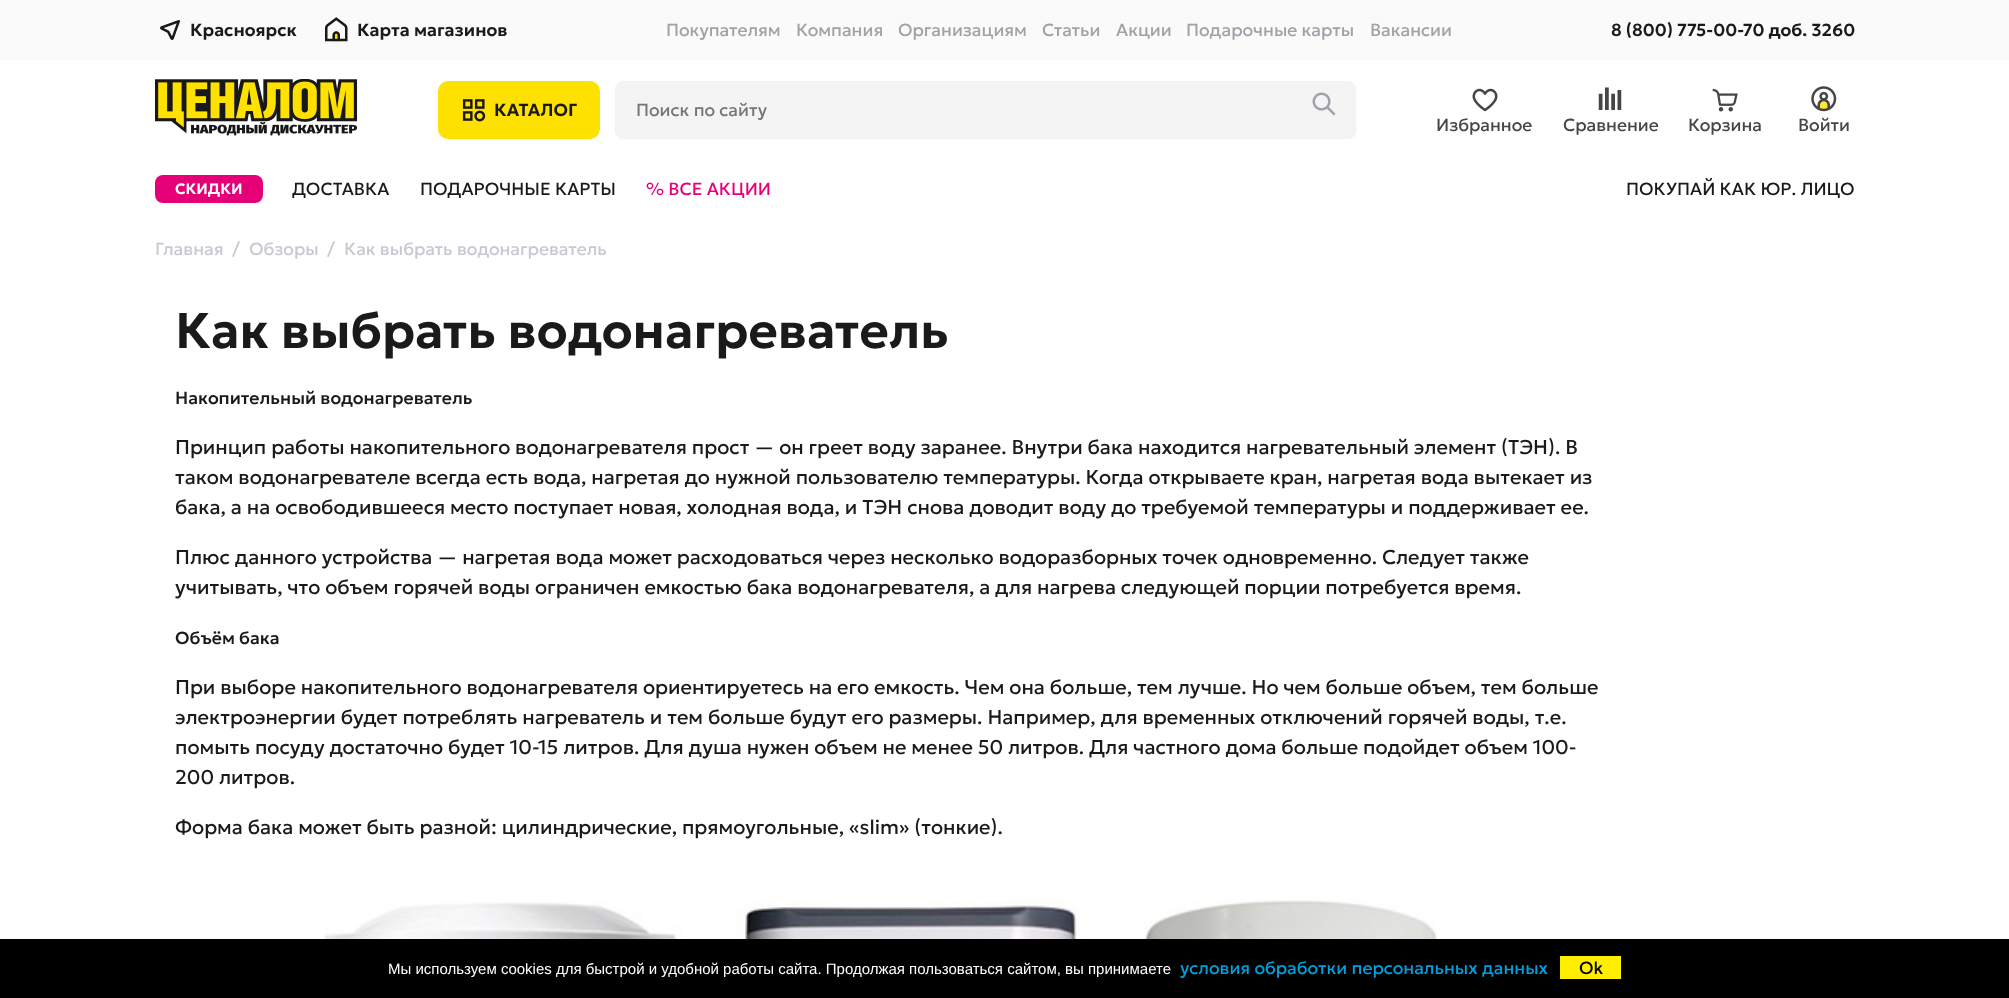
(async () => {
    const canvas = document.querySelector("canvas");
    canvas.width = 2009;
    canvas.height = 998;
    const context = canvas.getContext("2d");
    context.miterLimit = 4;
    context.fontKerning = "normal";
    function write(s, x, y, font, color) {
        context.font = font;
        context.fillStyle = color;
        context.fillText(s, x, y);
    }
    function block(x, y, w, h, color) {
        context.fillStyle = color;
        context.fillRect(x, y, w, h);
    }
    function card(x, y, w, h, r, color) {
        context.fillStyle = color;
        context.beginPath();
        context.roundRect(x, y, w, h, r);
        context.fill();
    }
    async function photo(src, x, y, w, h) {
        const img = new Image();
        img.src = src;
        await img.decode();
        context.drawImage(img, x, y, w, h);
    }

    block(0, 0, 2009, 998, "rgb(255, 255, 255)");
    block(0, 0, 2009, 60, "rgb(250, 250, 250)");
    await photo("media/1.png", 160, 20, 20, 20);
    write("Красноярск", 190, 36, "600 17.5px Geologica", "rgb(26, 26, 26)");
    await photo("media/2.png", 325, 17, 23, 25);
    write("Карта магазинов", 357, 36, "600 17.5px Geologica", "rgb(26, 26, 26)");
    await photo("media/3.png", 768, 28, 12, 5);
    write("Покупателям", 666, 36, "17.5px Geologica", "rgb(161, 161, 170)");
    await photo("media/4.png", 871, 28, 11, 5);
    write("Компания", 796, 36, "17.5px Geologica", "rgb(161, 161, 170)");
    await photo("media/5.png", 1014, 28, 12, 5);
    write("Организациям", 898, 36, "17.5px Geologica", "rgb(161, 161, 170)");
    write("Статьи", 1042, 36, "17.5px Geologica", "rgb(161, 161, 170)");
    write("Акции", 1116, 36, "17.5px Geologica", "rgb(161, 161, 170)");
    write("Подарочные карты", 1186, 36, "17.5px Geologica", "rgb(161, 161, 170)");
    write("Вакансии", 1370, 36, "17.5px Geologica", "rgb(161, 161, 170)");
    write("8 (800) 775-00-70 доб. 3260", 1611, 36, "600 17.5px Geologica", "rgb(26, 26, 26)");
    await photo("media/6.png", 155, 79, 203, 57);
    card(438, 81, 162, 58, 10, "rgb(255, 225, 0)");
    await photo("media/7.png", 462, 99, 24, 23);
    write("КАТАЛОГ", 494, 116, "600 17.5px Geologica", "rgb(26, 26, 26)");
    context.fillStyle = "rgb(244, 244, 245)";
    context.beginPath();
    context.roundRect(615.5, 81.5, 740, 57, 7.5);
    context.fill();
    context.strokeStyle = "rgb(242, 242, 242)";
    context.stroke();
    write("Поиcк по сайту", 636, 116, "17.5px Geologica", "rgb(117, 117, 117)");
    await photo("media/8.png", 1312, 92, 24, 24);
    await photo("media/9.png", 1472, 88, 26, 24);
    write("Избранное", 1436, 131, "17.5px Geologica", "rgb(70, 70, 73)");
    await photo("media/10.png", 1598, 87, 24, 23);
    write("Сравнение", 1563, 131, "17.5px Geologica", "rgb(70, 70, 73)");
    await photo("media/11.png", 1712, 88, 26, 24);
    write("Корзина", 1688, 131, "17.5px Geologica", "rgb(70, 70, 73)");
    await photo("media/12.png", 1811, 86, 26, 26);
    write("Войти", 1798, 131, "17.5px Geologica", "rgb(70, 70, 73)");
    card(155, 175, 108, 28, 8, "rgb(230, 0, 120)");
    write("СКИДКИ", 175, 194, "600 15px Geologica", "rgb(255, 255, 255)");
    write("ДОСТАВКА", 292, 195, "17.5px Geologica", "rgb(26, 26, 26)");
    write("ПОДАРОЧНЫЕ КАРТЫ", 420, 195, "17.5px Geologica", "rgb(26, 26, 26)");
    write("% ВСЕ АКЦИИ", 646, 195, "17.5px Geologica", "rgb(230, 0, 120)");
    write("ПОКУПАЙ КАК ЮР. ЛИЦО", 1626, 195, "17.5px Geologica", "rgb(26, 26, 26)");
    write("Главная", 155, 255, "17.5px Geologica", "rgb(199, 201, 208)");
    write("/", 232, 255, "17.5px Geologica", "rgb(199, 201, 208)");
    write("Обзоры", 249, 255, "17.5px Geologica", "rgb(199, 201, 208)");
    write("/", 327, 255, "17.5px Geologica", "rgb(199, 201, 208)");
    write("Как выбрать водонагреватель", 344, 255, "17.5px Geologica", "rgb(199, 201, 208)");
    write("Как выбрать водонагреватель", 175, 348, "600 50px Geologica", "rgb(26, 26, 26)");
    write("Накопительный водонагреватель", 175, 404, "500 17.5px Geologica", "rgb(26, 26, 26)");
    write("Принцип работы накопительного водонагревателя прост — он греет воду заранее. Внутри бака находится нагревательный элемент (ТЭН). В", 175, 454, "20px Geologica", "rgb(26, 26, 26)");
    write("таком водонагревателе всегда есть вода, нагретая до нужной пользователю температуры. Когда открываете кран, нагретая вода вытекает из", 175, 484, "20px Geologica", "rgb(26, 26, 26)");
    write("бака, а на освободившееся место поступает новая, холодная вода, и ТЭН снова доводит воду до требуемой температуры и поддерживает ее.", 175, 514, "20px Geologica", "rgb(26, 26, 26)");
    write("Плюс данного устройства — нагретая вода может расходоваться через несколько водоразборных точек одновременно. Следует также", 175, 564, "20px Geologica", "rgb(26, 26, 26)");
    write("учитывать, что объем горячей воды ограничен емкостью бака водонагревателя, а для нагрева следующей порции потребуется время.", 175, 594, "20px Geologica", "rgb(26, 26, 26)");
    write("Объём бака", 175, 644, "500 17.5px Geologica", "rgb(26, 26, 26)");
    write("При выборе накопительного водонагревателя ориентируетесь на его емкость. Чем она больше, тем лучше. Но чем больше объем, тем больше", 175, 694, "20px Geologica", "rgb(26, 26, 26)");
    write("электроэнергии будет потреблять нагреватель и тем больше будут его размеры. Например, для временных отключений горячей воды, т.е.", 175, 724, "20px Geologica", "rgb(26, 26, 26)");
    write("помыть посуду достаточно будет 10-15 литров. Для душа нужен объем не менее 50 литров. Для частного дома больше подойдет объем 100-", 175, 754, "20px Geologica", "rgb(26, 26, 26)");
    write("200 литров.", 175, 784, "20px Geologica", "rgb(26, 26, 26)");
    write("Форма бака может быть разной: цилиндрические, прямоугольные, «slim» (тонкие).", 175, 834, "20px Geologica", "rgb(26, 26, 26)");
    await photo("media/13.png", 324, 899, 1113, 40);
    block(0, 939, 2009, 59, "rgb(0, 0, 0)");
    write("Мы используем cookies для быстрой и удобной работы сайта. Продолжая пользоваться сайтом, вы принимаете", 388, 974, "15px Liberation Sans", "rgb(255, 255, 255)");
    write("условия обработки персональных данных", 1180, 974, "17.5px Geologica", "rgb(0, 159, 221)");
    block(1560, 956, 61, 23, "rgb(255, 238, 0)");
    write("Ok", 1579, 974, "17.5px Geologica", "rgb(0, 0, 0)");
})();
